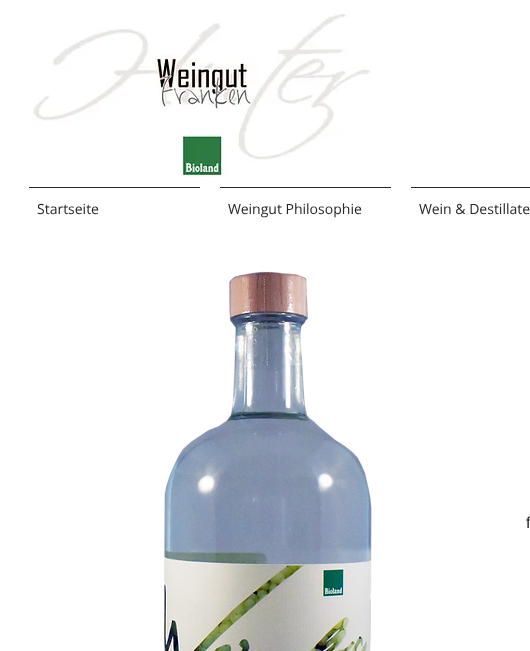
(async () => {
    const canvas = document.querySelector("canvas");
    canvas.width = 530;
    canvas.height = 651;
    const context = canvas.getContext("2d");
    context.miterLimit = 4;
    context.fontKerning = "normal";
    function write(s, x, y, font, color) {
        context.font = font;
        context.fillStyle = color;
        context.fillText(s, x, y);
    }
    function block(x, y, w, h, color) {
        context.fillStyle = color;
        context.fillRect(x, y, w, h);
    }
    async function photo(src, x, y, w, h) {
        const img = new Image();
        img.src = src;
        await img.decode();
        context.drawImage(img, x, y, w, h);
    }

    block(0, 0, 530, 651, "rgb(255, 255, 255)");
    await photo("media/1.png", 33, 14, 338, 164);
    block(29, 187, 171, 1, "rgb(40, 37, 39)");
    write("Startseite", 37, 214, "14px Open Sans", "rgb(40, 37, 39)");
    block(220, 187, 171, 1, "rgb(40, 37, 39)");
    write("Weingut Philosophie", 228, 214, "14px Open Sans", "rgb(40, 37, 39)");
    block(411, 187, 119, 1, "rgb(40, 37, 39)");
    write("Wein & Destillate", 419, 214, "14px Open Sans", "rgb(40, 37, 39)");
    await photo("media/2.png", 163, 271, 209, 380);
    write("f", 526, 528, "16px Liberation Sans", "rgb(40, 37, 39)");
})();
